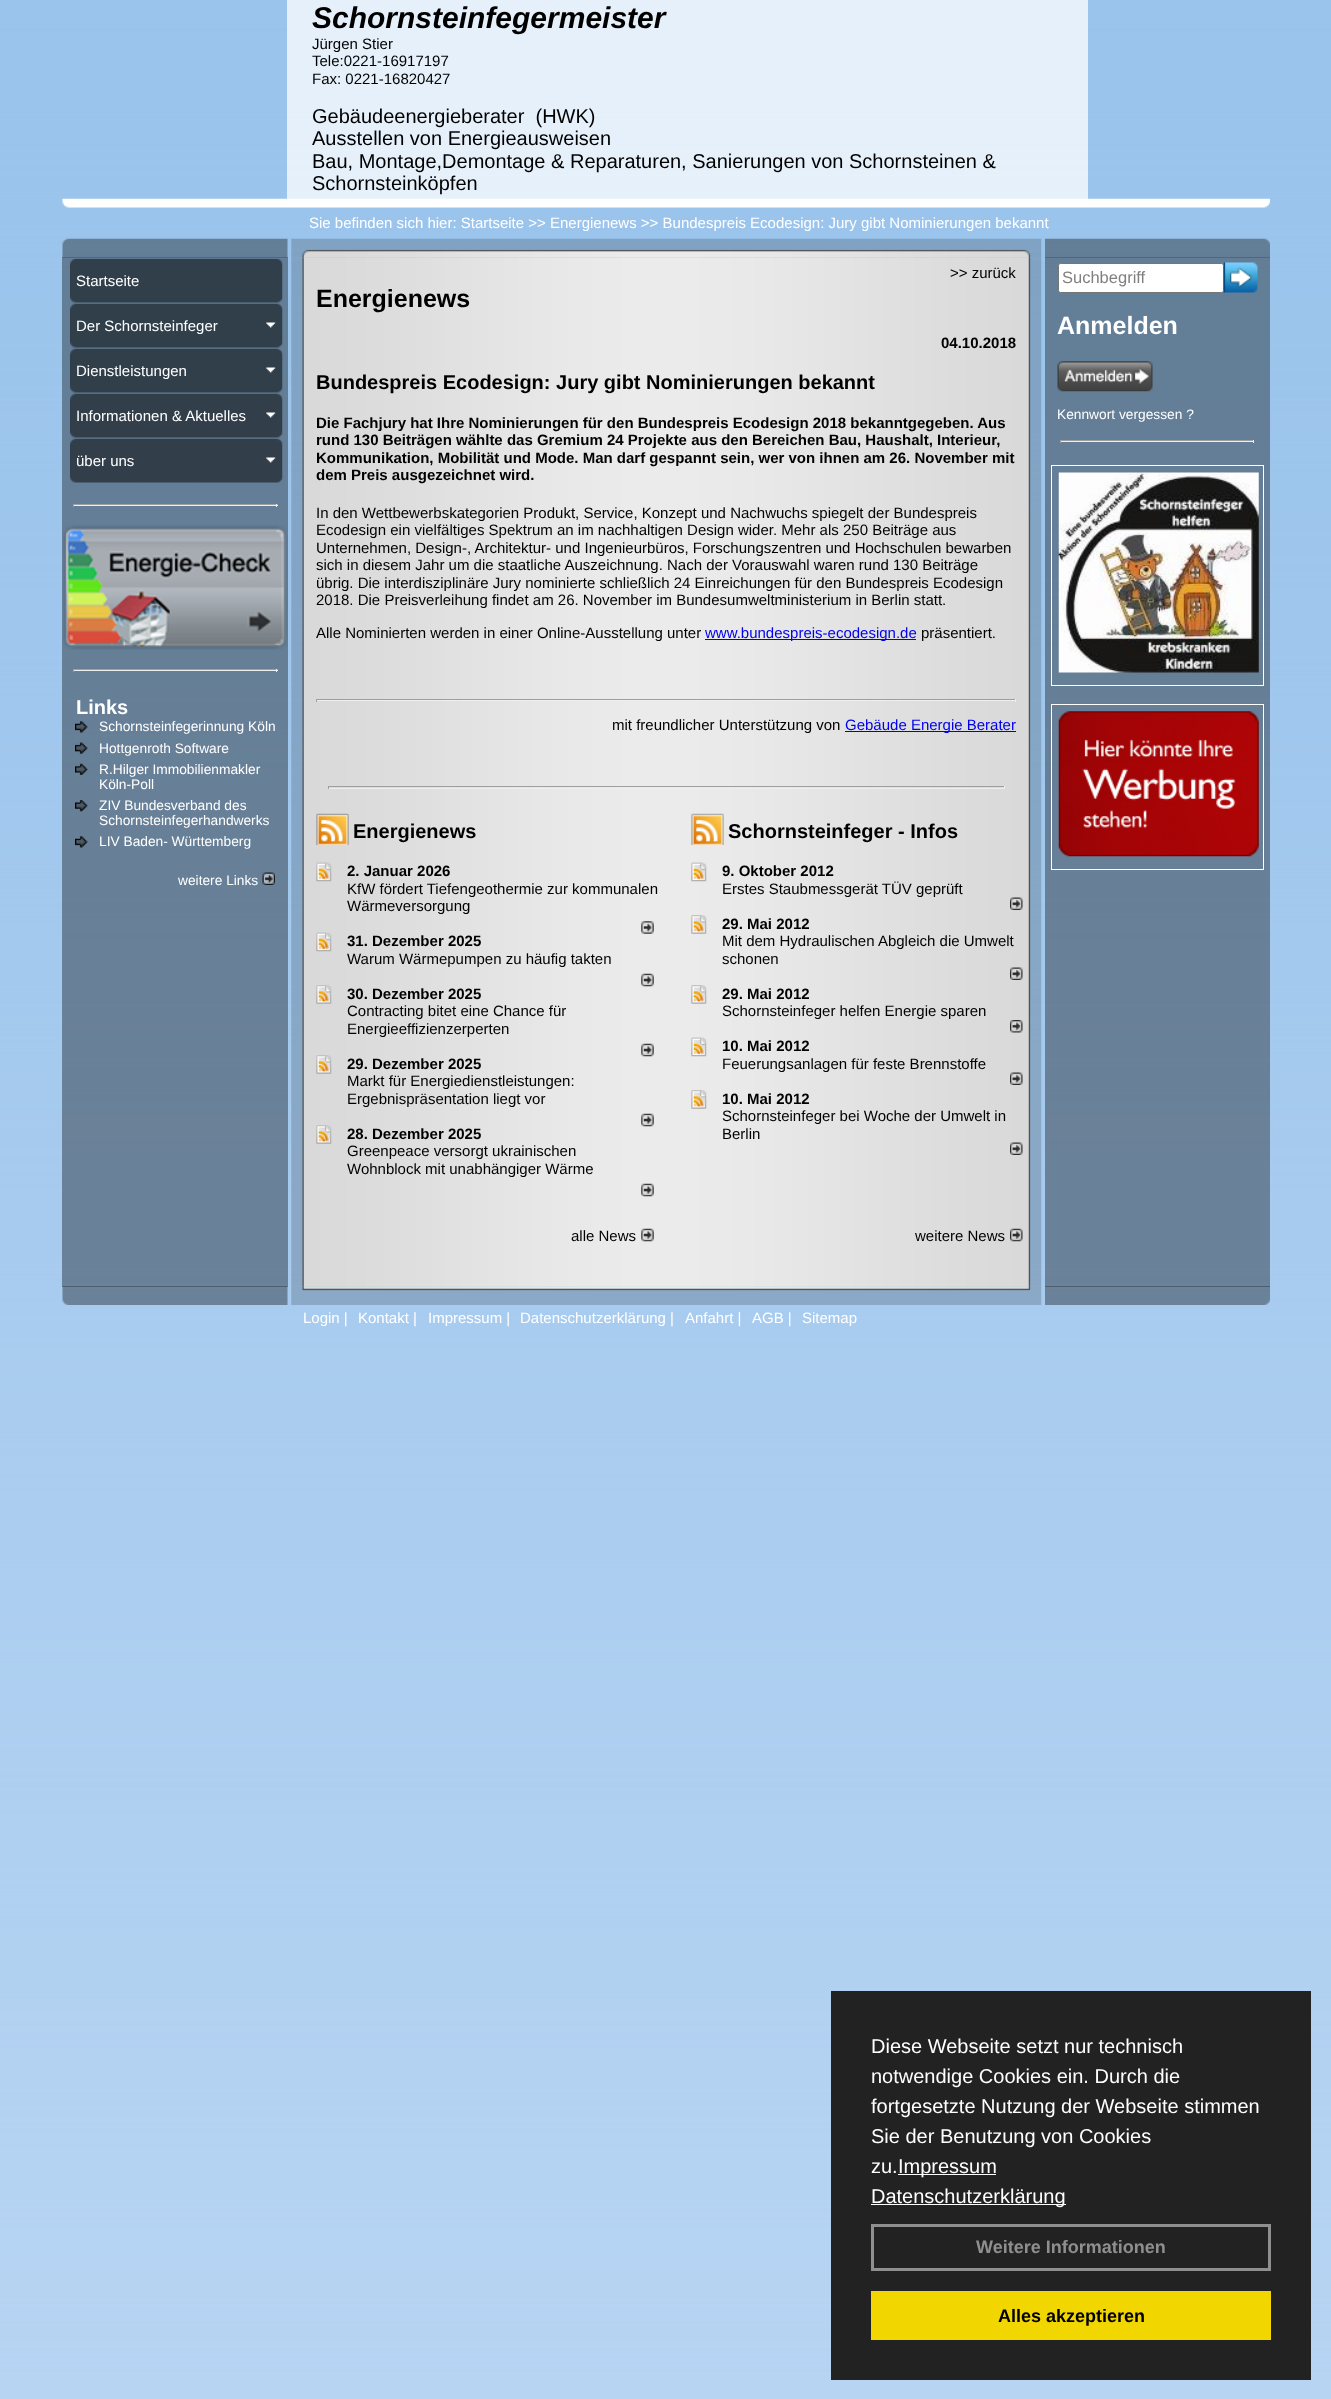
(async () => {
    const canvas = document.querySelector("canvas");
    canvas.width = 1331;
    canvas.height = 2399;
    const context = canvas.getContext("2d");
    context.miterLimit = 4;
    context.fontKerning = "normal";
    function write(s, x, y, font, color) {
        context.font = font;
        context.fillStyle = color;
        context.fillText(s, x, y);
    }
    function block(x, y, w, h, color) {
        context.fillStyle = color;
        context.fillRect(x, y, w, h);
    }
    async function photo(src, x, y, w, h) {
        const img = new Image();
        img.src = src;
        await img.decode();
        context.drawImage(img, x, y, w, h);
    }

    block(0, 0, 1331, 2399, "rgb(255, 255, 255)");
    await photo("media/1.png", 0, 0, 1331, 2399);
    await photo("media/2.png", 62, 198, 1208, 10);
    block(287, 0, 801, 199, "rgba(255, 255, 255, 0.75)");
    write("Schornsteinfegermeister", 312, 28, "italic bold 30px Liberation Sans", "rgb(0, 0, 0)");
    write("Jürgen Stier", 312, 49, "15px Liberation Sans", "rgb(0, 0, 0)");
    write("Tele:0221-16917197", 312, 66, "15px Liberation Sans", "rgb(0, 0, 0)");
    write("Fax: 0221-16820427", 312, 84, "15px Liberation Sans", "rgb(0, 0, 0)");
    write("Gebäudeenergieberater  (HWK)", 312, 123, "20px Liberation Sans", "rgb(0, 0, 0)");
    write("Ausstellen von Energieausweisen", 312, 145, "20px Liberation Sans", "rgb(0, 0, 0)");
    write("Bau, Montage,Demontage & Reparaturen, Sanierungen von Schornsteinen &", 312, 168, "20px Liberation Sans", "rgb(0, 0, 0)");
    write("Schornsteinköpfen", 312, 190, "20px Liberation Sans", "rgb(0, 0, 0)");
    write("Sie befinden sich hier: Startseite >> Energienews >> Bundespreis Ecodesign: Jury gibt Nominierungen bekannt", 309, 228, "15px Liberation Sans", "rgb(255, 255, 255)");
    block(62, 257, 226, 1030, "rgba(0, 0, 0, 0.36)");
    await photo("media/3.png", 62, 238, 226, 20);
    await photo("media/22.png", 291, 257, 751, 1030);
    await photo("media/4.png", 291, 238, 751, 20);
    block(1045, 257, 225, 1030, "rgba(0, 0, 0, 0.36)");
    await photo("media/5.png", 1045, 238, 225, 20);
    await photo("media/6.png", 70, 258, 213, 45);
    write("Startseite", 76, 286, "15px Liberation Sans", "rgb(255, 255, 255)");
    await photo("media/7.png", 70, 303, 213, 45);
    write("Der Schornsteinfeger", 76, 331, "15px Liberation Sans", "rgb(255, 255, 255)");
    await photo("media/8.png", 266, 322, 10, 6);
    await photo("media/9.png", 70, 348, 213, 45);
    write("Dienstleistungen", 76, 376, "15px Liberation Sans", "rgb(255, 255, 255)");
    await photo("media/10.png", 266, 367, 10, 6);
    await photo("media/11.png", 70, 393, 213, 45);
    write("Informationen & Aktuelles", 76, 421, "15px Liberation Sans", "rgb(255, 255, 255)");
    await photo("media/12.png", 266, 412, 10, 6);
    await photo("media/13.png", 70, 438, 213, 45);
    write("über uns", 76, 466, "15px Liberation Sans", "rgb(255, 255, 255)");
    await photo("media/14.png", 266, 457, 10, 6);
    block(73, 504, 205, 1, "rgb(159, 159, 159)");
    block(276, 504, 1, 3, "rgb(238, 238, 238)");
    block(73, 505, 205, 1, "rgb(238, 238, 238)");
    block(73, 504, 1, 3, "rgb(159, 159, 159)");
    await photo("media/15.png", 63, 525, 225, 125);
    block(73, 669, 205, 1, "rgb(159, 159, 159)");
    block(276, 669, 1, 3, "rgb(238, 238, 238)");
    block(73, 670, 205, 1, "rgb(238, 238, 238)");
    block(73, 669, 1, 3, "rgb(159, 159, 159)");
    write("Links", 76, 714, "bold 20px Liberation Sans", "rgb(255, 255, 255)");
    await photo("media/16.png", 75, 721, 13, 12);
    write("Schornsteinfegerinnung Köln", 99, 731, "13.75px Liberation Sans", "rgb(255, 255, 255)");
    await photo("media/17.png", 75, 742, 13, 12);
    write("Hottgenroth Software", 99, 753, "13.75px Liberation Sans", "rgb(255, 255, 255)");
    await photo("media/18.png", 75, 763, 13, 12);
    write("R.Hilger Immobilienmakler", 99, 774, "13.75px Liberation Sans", "rgb(255, 255, 255)");
    write("Köln-Poll", 99, 789, "13.75px Liberation Sans", "rgb(255, 255, 255)");
    await photo("media/19.png", 75, 800, 13, 12);
    write("ZIV Bundesverband des", 99, 810, "13.75px Liberation Sans", "rgb(255, 255, 255)");
    write("Schornsteinfegerhandwerks", 99, 825, "13.75px Liberation Sans", "rgb(255, 255, 255)");
    await photo("media/20.png", 75, 836, 13, 12);
    write("LIV Baden- Württemberg", 99, 846, "13.75px Liberation Sans", "rgb(255, 255, 255)");
    write("weitere Links", 178, 885, "13.75px Liberation Sans", "rgb(255, 255, 255)");
    await photo("media/21.png", 262, 872, 13, 13);
    write(">> zurück", 950, 278, "15px Liberation Sans", "rgb(0, 0, 0)");
    write("Energienews", 316, 307, "bold 25px Liberation Sans", "rgb(0, 0, 0)");
    write("04.10.2018", 941, 348, "bold 15px Liberation Sans", "rgb(0, 0, 0)");
    write("Bundespreis Ecodesign: Jury gibt Nominierungen bekannt", 316, 389, "bold 20px Liberation Sans", "rgb(0, 0, 0)");
    write("Die Fachjury hat Ihre Nominierungen für den Bundespreis Ecodesign 2018 bekanntgegeben. Aus", 316, 428, "bold 15px Liberation Sans", "rgb(0, 0, 0)");
    write("rund 130 Beiträgen wählte das Gremium 24 Projekte aus den Bereichen Bau, Haushalt, Interieur,", 316, 445, "bold 15px Liberation Sans", "rgb(0, 0, 0)");
    write("Kommunikation, Mobilität und Mode. Man darf gespannt sein, wer von ihnen am 26. November mit", 316, 463, "bold 15px Liberation Sans", "rgb(0, 0, 0)");
    write("dem Preis ausgezeichnet wird.", 316, 480, "bold 15px Liberation Sans", "rgb(0, 0, 0)");
    write("In den Wettbewerbskategorien Produkt, Service, Konzept und Nachwuchs spiegelt der Bundespreis", 316, 518, "15px Liberation Sans", "rgb(0, 0, 0)");
    write("Ecodesign ein vielfältiges Spektrum an im nachhaltigen Design wider. Mehr als 250 Beiträge aus", 316, 535, "15px Liberation Sans", "rgb(0, 0, 0)");
    write("Unternehmen, Design-, Architektur- und Ingenieurbüros, Forschungszentren und Hochschulen bewarben", 316, 553, "15px Liberation Sans", "rgb(0, 0, 0)");
    write("sich in diesem Jahr um die staatliche Auszeichnung. Nach der Vorauswahl waren rund 130 Beiträge", 316, 570, "15px Liberation Sans", "rgb(0, 0, 0)");
    write("übrig. Die interdisziplinäre Jury nominierte schließlich 24 Einreichungen für den Bundespreis Ecodesign", 316, 588, "15px Liberation Sans", "rgb(0, 0, 0)");
    write("2018. Die Preisverleihung findet am 26. November im Bundesumweltministerium in Berlin statt.", 316, 605, "15px Liberation Sans", "rgb(0, 0, 0)");
    write("Alle Nominierten werden in einer Online-Ausstellung unter", 316, 638, "15px Liberation Sans", "rgb(0, 0, 0)");
    block(705, 639, 211, 1, "rgb(0, 0, 238)");
    write("www.bundespreis-ecodesign.de", 705, 638, "15px Liberation Sans", "rgb(0, 0, 238)");
    write("präsentiert.", 921, 638, "15px Liberation Sans", "rgb(0, 0, 0)");
    block(316, 699, 700, 1, "rgb(159, 159, 159)");
    block(1015, 699, 1, 3, "rgb(238, 238, 238)");
    block(316, 700, 700, 1, "rgb(238, 238, 238)");
    block(316, 699, 1, 3, "rgb(159, 159, 159)");
    write("mit freundlicher Unterstützung von", 612, 730, "15px Liberation Sans", "rgb(0, 0, 0)");
    block(845, 731, 171, 1, "rgb(0, 0, 238)");
    write("Gebäude Energie Berater", 845, 730, "15px Liberation Sans", "rgb(0, 0, 238)");
    block(328, 786, 677, 1, "rgb(159, 159, 159)");
    block(1004, 786, 1, 3, "rgb(238, 238, 238)");
    block(328, 788, 677, 1, "rgb(238, 238, 238)");
    block(328, 786, 1, 3, "rgb(159, 159, 159)");
    await photo("media/23.png", 316, 813, 33, 32);
    write("Energienews", 353, 838, "bold 20px Liberation Sans", "rgb(0, 0, 0)");
    await photo("media/24.png", 316, 862, 16, 20);
    write("2. Januar 2026", 347, 876, "bold 15px Liberation Sans", "rgb(0, 0, 0)");
    write("KfW fördert Tiefengeothermie zur kommunalen", 347, 894, "15px Liberation Sans", "rgb(0, 0, 0)");
    write("Wärmeversorgung", 347, 911, "15px Liberation Sans", "rgb(0, 0, 0)");
    await photo("media/25.png", 641, 921, 13, 13);
    await photo("media/24.png", 316, 932, 16, 20);
    write("31. Dezember 2025", 347, 946, "bold 15px Liberation Sans", "rgb(0, 0, 0)");
    write("Warum Wärmepumpen zu häufig takten", 347, 964, "15px Liberation Sans", "rgb(0, 0, 0)");
    await photo("media/26.png", 641, 973, 13, 14);
    await photo("media/27.png", 316, 985, 16, 19);
    write("30. Dezember 2025", 347, 999, "bold 15px Liberation Sans", "rgb(0, 0, 0)");
    write("Contracting bitet eine Chance für", 347, 1016, "15px Liberation Sans", "rgb(0, 0, 0)");
    write("Energieeffizienzerperten", 347, 1034, "15px Liberation Sans", "rgb(0, 0, 0)");
    await photo("media/26.png", 641, 1043, 13, 14);
    await photo("media/27.png", 316, 1055, 16, 19);
    write("29. Dezember 2025", 347, 1069, "bold 15px Liberation Sans", "rgb(0, 0, 0)");
    write("Markt für Energiedienstleistungen:", 347, 1086, "15px Liberation Sans", "rgb(0, 0, 0)");
    write("Ergebnispräsentation liegt vor", 347, 1104, "15px Liberation Sans", "rgb(0, 0, 0)");
    await photo("media/26.png", 641, 1113, 13, 14);
    await photo("media/27.png", 316, 1125, 16, 19);
    write("28. Dezember 2025", 347, 1139, "bold 15px Liberation Sans", "rgb(0, 0, 0)");
    write("Greenpeace versorgt ukrainischen", 347, 1156, "15px Liberation Sans", "rgb(0, 0, 0)");
    write("Wohnblock mit unabhängiger Wärme", 347, 1174, "15px Liberation Sans", "rgb(0, 0, 0)");
    await photo("media/26.png", 641, 1183, 13, 14);
    write("alle News", 571, 1241, "15px Liberation Sans", "rgb(0, 0, 0)");
    await photo("media/26.png", 641, 1228, 13, 14);
    await photo("media/28.png", 691, 813, 33, 32);
    write("Schornsteinfeger - Infos", 728, 838, "bold 20px Liberation Sans", "rgb(0, 0, 0)");
    await photo("media/29.png", 691, 862, 16, 20);
    write("9. Oktober 2012", 722, 876, "bold 15px Liberation Sans", "rgb(0, 0, 0)");
    write("Erstes Staubmessgerät TÜV geprüft", 722, 894, "15px Liberation Sans", "rgb(0, 0, 0)");
    await photo("media/30.png", 1010, 897, 13, 13);
    await photo("media/31.png", 691, 915, 16, 19);
    write("29. Mai 2012", 722, 929, "bold 15px Liberation Sans", "rgb(0, 0, 0)");
    write("Mit dem Hydraulischen Abgleich die Umwelt", 722, 946, "15px Liberation Sans", "rgb(0, 0, 0)");
    write("schonen", 722, 964, "15px Liberation Sans", "rgb(0, 0, 0)");
    await photo("media/30.png", 1010, 967, 13, 13);
    await photo("media/31.png", 691, 985, 16, 19);
    write("29. Mai 2012", 722, 999, "bold 15px Liberation Sans", "rgb(0, 0, 0)");
    write("Schornsteinfeger helfen Energie sparen", 722, 1016, "15px Liberation Sans", "rgb(0, 0, 0)");
    await photo("media/32.png", 1010, 1020, 13, 13);
    await photo("media/29.png", 691, 1037, 16, 20);
    write("10. Mai 2012", 722, 1051, "bold 15px Liberation Sans", "rgb(0, 0, 0)");
    write("Feuerungsanlagen für feste Brennstoffe", 722, 1069, "15px Liberation Sans", "rgb(0, 0, 0)");
    await photo("media/30.png", 1010, 1072, 13, 13);
    await photo("media/31.png", 691, 1090, 16, 19);
    write("10. Mai 2012", 722, 1104, "bold 15px Liberation Sans", "rgb(0, 0, 0)");
    write("Schornsteinfeger bei Woche der Umwelt in", 722, 1121, "15px Liberation Sans", "rgb(0, 0, 0)");
    write("Berlin", 722, 1139, "15px Liberation Sans", "rgb(0, 0, 0)");
    await photo("media/30.png", 1010, 1142, 13, 13);
    write("weitere News", 915, 1241, "15px Liberation Sans", "rgb(0, 0, 0)");
    await photo("media/33.png", 1010, 1228, 13, 14);
    context.fillStyle = "rgb(255, 255, 255)";
    context.beginPath();
    context.roundRect(1058.5, 263.5, 165, 29, 2);
    context.fill();
    context.strokeStyle = "rgb(118, 118, 118)";
    context.stroke();
    write("Suchbegriff", 1062, 283, "16.5px Liberation Sans", "rgb(128, 128, 128)");
    await photo("media/34.png", 1223, 262, 35, 31);
    write("Anmelden", 1057, 334, "bold 25px Liberation Sans", "rgb(255, 255, 255)");
    await photo("media/35.png", 1057, 361, 96, 31);
    write("Kennwort vergessen ?", 1057, 419, "13.75px Liberation Sans", "rgb(255, 255, 255)");
    block(1060, 440, 194, 1, "rgb(159, 159, 159)");
    block(1253, 440, 1, 3, "rgb(238, 238, 238)");
    block(1060, 441, 194, 1, "rgb(238, 238, 238)");
    block(1060, 440, 1, 3, "rgb(159, 159, 159)");
    context.strokeStyle = "rgb(255, 255, 255)";
    context.strokeRect(1051.5, 465.5, 212, 220);
    await photo("media/36.png", 1058, 472, 201, 201);
    context.strokeRect(1051.5, 704.5, 212, 165);
    await photo("media/37.png", 1058, 711, 201, 146);
    await photo("media/38.png", 62, 1286, 226, 19);
    await photo("media/39.png", 291, 1286, 751, 19);
    await photo("media/40.png", 1045, 1286, 225, 19);
    write("Login |", 303, 1323, "15px Liberation Sans", "rgb(255, 255, 255)");
    write("Kontakt |", 358, 1323, "15px Liberation Sans", "rgb(255, 255, 255)");
    write("Impressum |", 428, 1323, "15px Liberation Sans", "rgb(255, 255, 255)");
    write("Datenschutzerklärung |", 520, 1323, "15px Liberation Sans", "rgb(255, 255, 255)");
    write("Anfahrt |", 685, 1323, "15px Liberation Sans", "rgb(255, 255, 255)");
    write("AGB |", 752, 1323, "15px Liberation Sans", "rgb(255, 255, 255)");
    write("Sitemap", 802, 1323, "15px Liberation Sans", "rgb(255, 255, 255)");
    block(831, 1991, 480, 389, "rgb(34, 34, 34)");
    write("Diese Webseite setzt nur technisch", 871, 2053, "20px Liberation Sans", "rgb(255, 255, 255)");
    write("notwendige Cookies ein. Durch die", 871, 2083, "20px Liberation Sans", "rgb(255, 255, 255)");
    write("fortgesetzte Nutzung der Webseite stimmen", 871, 2113, "20px Liberation Sans", "rgb(255, 255, 255)");
    write("Sie der Benutzung von Cookies", 871, 2143, "20px Liberation Sans", "rgb(255, 255, 255)");
    write("zu.", 871, 2173, "20px Liberation Sans", "rgb(255, 255, 255)");
    block(898, 2174, 98, 1, "rgb(255, 255, 255)");
    write("Impressum", 898, 2173, "20px Liberation Sans", "rgb(255, 255, 255)");
    block(871, 2204, 195, 1, "rgb(255, 255, 255)");
    write("Datenschutzerklärung", 871, 2203, "20px Liberation Sans", "rgb(255, 255, 255)");
    context.strokeStyle = "rgb(143, 143, 143)";
    context.lineWidth = 3;
    context.strokeRect(872.5, 2225.5, 397, 44);
    write("Weitere Informationen", 976, 2253, "bold 18px Liberation Sans", "rgb(143, 143, 143)");
    block(871, 2291, 400, 49, "rgb(241, 214, 0)");
    write("Alles akzeptieren", 998, 2322, "bold 18px Liberation Sans", "rgb(0, 0, 0)");
})();
